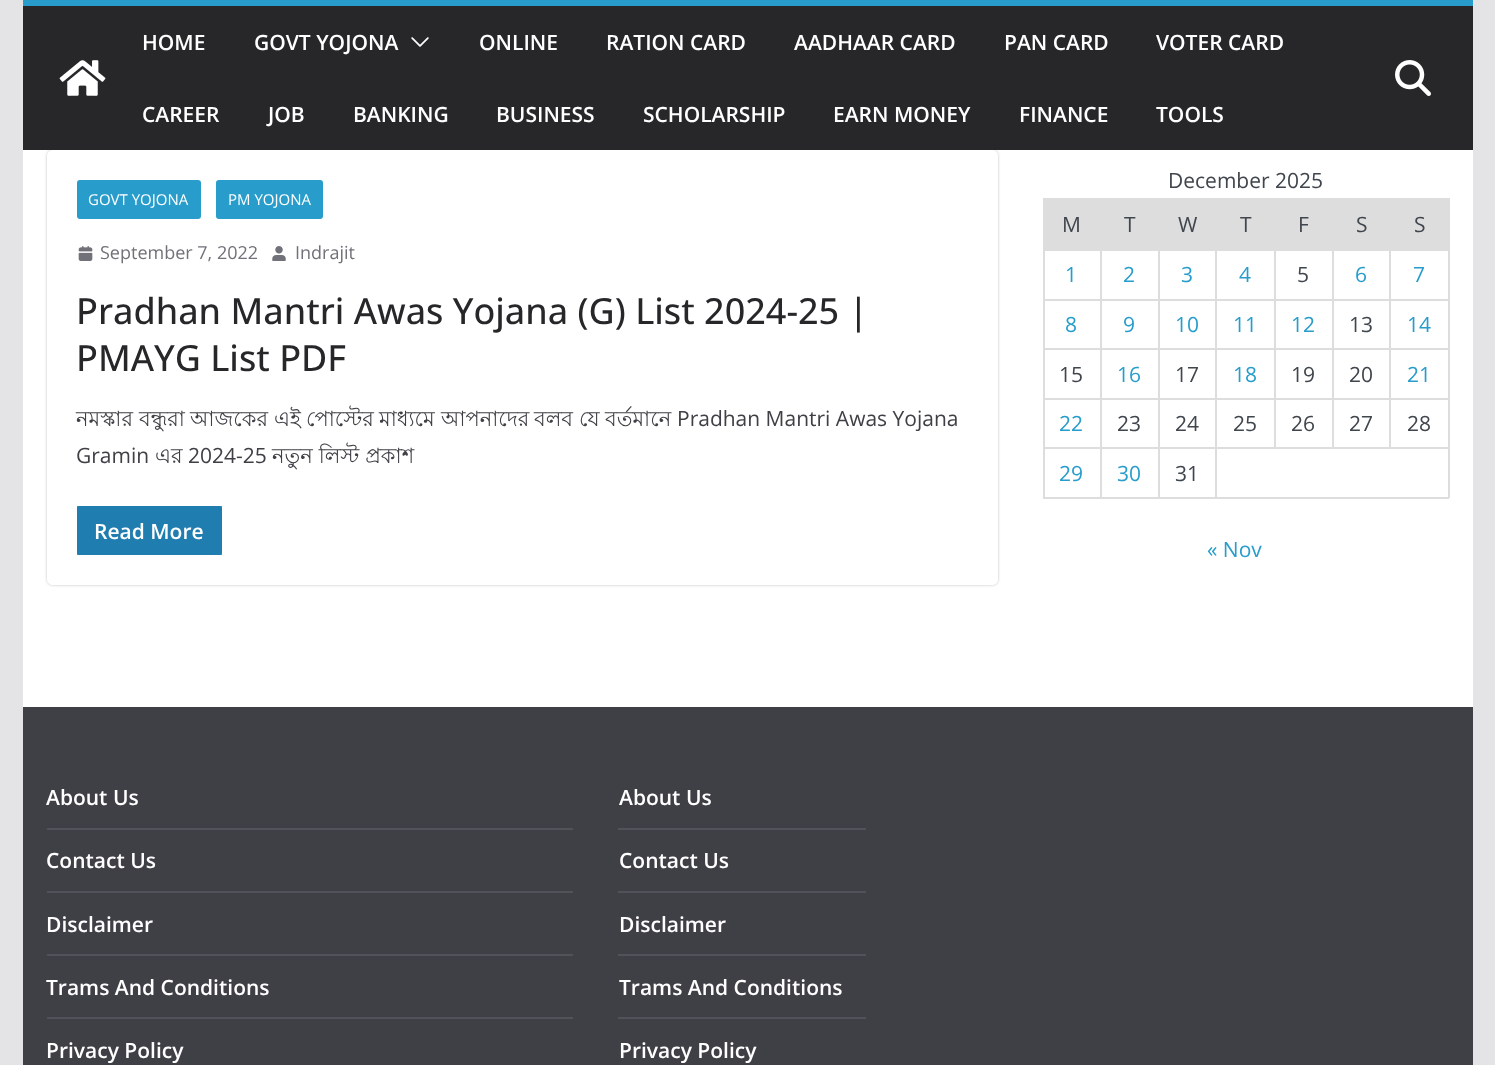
(async () => {
    const canvas = document.querySelector("canvas");
    canvas.width = 1495;
    canvas.height = 1065;
    const context = canvas.getContext("2d");
    context.miterLimit = 4;
    context.fontKerning = "normal";
    function write(s, x, y, font, color) {
        context.font = font;
        context.fillStyle = color;
        context.fillText(s, x, y);
    }
    function block(x, y, w, h, color) {
        context.fillStyle = color;
        context.fillRect(x, y, w, h);
    }
    function card(x, y, w, h, r, color) {
        context.fillStyle = color;
        context.beginPath();
        context.roundRect(x, y, w, h, r);
        context.fill();
    }
    async function photo(src, x, y, w, h) {
        const img = new Image();
        img.src = src;
        await img.decode();
        context.drawImage(img, x, y, w, h);
    }

    block(0, 0, 1495, 1065, "rgb(228, 228, 231)");
    block(23, 150, 1450, 557, "rgb(255, 255, 255)");
    context.save();
    context.beginPath();
    context.moveTo(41, 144);
    context.lineTo(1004, 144);
    context.lineTo(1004, 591);
    context.lineTo(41, 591);
    context.closePath();
    context.moveTo(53, 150);
    context.lineTo(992, 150);
    context.bezierCurveTo(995.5, 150, 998, 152.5, 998, 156);
    context.lineTo(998, 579);
    context.bezierCurveTo(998, 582.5, 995.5, 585, 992, 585);
    context.lineTo(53, 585);
    context.bezierCurveTo(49.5, 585, 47, 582.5, 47, 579);
    context.lineTo(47, 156);
    context.bezierCurveTo(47, 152.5, 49.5, 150, 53, 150);
    context.closePath();
    context.clip("evenodd");
    context.fillStyle = "rgba(0, 0, 0, 0.24)";
    context.filter = "blur(1.5px)";
    context.beginPath();
    context.roundRect(47, 150, 951, 435, 6);
    context.fill();
    context.filter = "none";
    context.restore();
    block(23, 6, 1450, 144, "rgb(39, 39, 42)");
    block(23, 0, 1450, 6, "rgb(40, 157, 204)");
    await photo("media/1.png", 59, 60, 47, 36);
    write("HOME", 142, 50, "600 21px Open Sans", "rgb(255, 255, 255)");
    write("GOVT YOJONA", 254, 50, "600 21px Open Sans", "rgb(255, 255, 255)");
    await photo("media/2.png", 411, 37, 18, 10);
    write("ONLINE", 479, 50, "600 21px Open Sans", "rgb(255, 255, 255)");
    write("RATION CARD", 606, 50, "600 21px Open Sans", "rgb(255, 255, 255)");
    write("AADHAAR CARD", 794, 50, "600 21px Open Sans", "rgb(255, 255, 255)");
    write("PAN CARD", 1004, 50, "600 21px Open Sans", "rgb(255, 255, 255)");
    write("VOTER CARD", 1156, 50, "600 21px Open Sans", "rgb(255, 255, 255)");
    write("CAREER", 142, 122, "600 21px Open Sans", "rgb(255, 255, 255)");
    write("JOB", 268, 122, "600 21px Open Sans", "rgb(255, 255, 255)");
    write("BANKING", 353, 122, "600 21px Open Sans", "rgb(255, 255, 255)");
    write("BUSINESS", 496, 122, "600 21px Open Sans", "rgb(255, 255, 255)");
    write("SCHOLARSHIP", 643, 122, "600 21px Open Sans", "rgb(255, 255, 255)");
    write("EARN MONEY", 833, 122, "600 21px Open Sans", "rgb(255, 255, 255)");
    write("FINANCE", 1019, 122, "600 21px Open Sans", "rgb(255, 255, 255)");
    write("TOOLS", 1156, 122, "600 21px Open Sans", "rgb(255, 255, 255)");
    await photo("media/3.png", 1395, 60, 36, 36);
    card(77, 180, 124, 39, 3, "rgb(40, 157, 204)");
    write("GOVT YOJONA", 88, 205, "15px Open Sans", "rgb(255, 255, 255)");
    card(216, 180, 107, 39, 3, "rgb(40, 157, 204)");
    write("PM YOJONA", 228, 205, "15px Open Sans", "rgb(255, 255, 255)");
    await photo("media/4.png", 78, 246, 15, 15);
    write("September 7, 2022", 100, 259, "18px Open Sans", "rgb(113, 113, 122)");
    await photo("media/5.png", 272, 246, 14, 15);
    write("Indrajit", 295, 259, "18px Open Sans", "rgb(113, 113, 122)");
    write("Pradhan Mantri Awas Yojana (G) List 2024-25 |", 76, 324, "500 36px Open Sans", "rgb(39, 39, 42)");
    write("PMAYG List PDF", 76, 371, "500 36px Open Sans", "rgb(39, 39, 42)");
    write("নমস্কার", 76, 426, "21px Lohit Bengali", "rgb(63, 63, 70)");
    write("বন্ধুরা", 139, 426, "21px Lohit Bengali", "rgb(63, 63, 70)");
    write("আজকের", 190, 426, "21px Lohit Bengali", "rgb(63, 63, 70)");
    write("এই", 274, 426, "21px Lohit Bengali", "rgb(63, 63, 70)");
    write("পোস্টের", 306, 426, "21px Lohit Bengali", "rgb(63, 63, 70)");
    write("মাধ্যমে", 379, 426, "21px Lohit Bengali", "rgb(63, 63, 70)");
    write("আপনাদের", 441, 426, "21px Lohit Bengali", "rgb(63, 63, 70)");
    write("বলব", 534, 426, "21px Lohit Bengali", "rgb(63, 63, 70)");
    write("যে", 579, 426, "21px Lohit Bengali", "rgb(63, 63, 70)");
    write("বর্তমানে", 605, 426, "21px Lohit Bengali", "rgb(63, 63, 70)");
    write("Pradhan Mantri Awas Yojana", 677, 426, "21px Open Sans", "rgb(63, 63, 70)");
    write("Gramin", 76, 463, "21px Open Sans", "rgb(63, 63, 70)");
    write("এর", 155, 463, "21px Lohit Bengali", "rgb(63, 63, 70)");
    write("2024-25", 188, 463, "21px Open Sans", "rgb(63, 63, 70)");
    write("নতুন লিস্ট প্রকাশ", 272, 463, "21px Lohit Bengali", "rgb(63, 63, 70)");
    block(77, 506, 145, 49, "rgb(40, 157, 204)");
    card(77, 506, 145, 49, 3, "rgb(32, 125, 175)");
    write("Read More", 94, 539, "600 21px Open Sans", "rgb(255, 255, 255)");
    write("December 2025", 1168, 188, "21px Open Sans", "rgb(64, 70, 77)");
    block(1043, 200, 405, 49, "rgb(221, 221, 221)");
    write("M", 1062, 232, "21px Open Sans", "rgb(64, 70, 77)");
    write("T", 1124, 232, "21px Open Sans", "rgb(64, 70, 77)");
    write("W", 1178, 232, "21px Open Sans", "rgb(64, 70, 77)");
    write("T", 1240, 232, "21px Open Sans", "rgb(64, 70, 77)");
    write("F", 1298, 232, "21px Open Sans", "rgb(64, 70, 77)");
    write("S", 1356, 232, "21px Open Sans", "rgb(64, 70, 77)");
    block(1043, 198, 406, 2, "rgb(221, 221, 221)");
    block(1389, 249, 60, 2, "rgb(221, 221, 221)");
    block(1389, 299, 60, 2, "rgb(221, 221, 221)");
    block(1389, 348, 60, 2, "rgb(221, 221, 221)");
    block(1389, 398, 60, 2, "rgb(221, 221, 221)");
    block(1215, 447, 234, 2, "rgb(221, 221, 221)");
    block(1448, 447, 2, 51, "rgb(221, 221, 221)");
    block(1448, 398, 2, 51, "rgb(221, 221, 221)");
    block(1448, 348, 2, 51, "rgb(221, 221, 221)");
    block(1448, 299, 2, 51, "rgb(221, 221, 221)");
    block(1448, 249, 2, 51, "rgb(221, 221, 221)");
    block(1448, 198, 2, 53, "rgb(221, 221, 221)");
    write("S", 1414, 232, "21px Open Sans", "rgb(64, 70, 77)");
    block(1389, 398, 2, 51, "rgb(221, 221, 221)");
    block(1332, 398, 59, 2, "rgb(221, 221, 221)");
    block(1389, 348, 2, 51, "rgb(221, 221, 221)");
    block(1332, 348, 59, 2, "rgb(221, 221, 221)");
    block(1389, 299, 2, 51, "rgb(221, 221, 221)");
    block(1332, 299, 59, 2, "rgb(221, 221, 221)");
    block(1389, 249, 2, 51, "rgb(221, 221, 221)");
    block(1332, 249, 59, 2, "rgb(221, 221, 221)");
    block(1332, 398, 2, 51, "rgb(221, 221, 221)");
    block(1274, 398, 60, 2, "rgb(221, 221, 221)");
    block(1332, 348, 2, 51, "rgb(221, 221, 221)");
    block(1274, 348, 60, 2, "rgb(221, 221, 221)");
    block(1332, 299, 2, 51, "rgb(221, 221, 221)");
    block(1274, 299, 60, 2, "rgb(221, 221, 221)");
    block(1332, 249, 2, 51, "rgb(221, 221, 221)");
    block(1274, 249, 60, 2, "rgb(221, 221, 221)");
    block(1274, 398, 2, 51, "rgb(221, 221, 221)");
    block(1215, 398, 60, 2, "rgb(221, 221, 221)");
    block(1274, 348, 2, 51, "rgb(221, 221, 221)");
    block(1215, 348, 60, 2, "rgb(221, 221, 221)");
    block(1274, 299, 2, 51, "rgb(221, 221, 221)");
    block(1215, 299, 60, 2, "rgb(221, 221, 221)");
    block(1274, 249, 2, 51, "rgb(221, 221, 221)");
    block(1215, 249, 60, 2, "rgb(221, 221, 221)");
    block(1215, 497, 234, 2, "rgb(221, 221, 221)");
    block(1215, 447, 2, 51, "rgb(221, 221, 221)");
    block(1158, 447, 59, 2, "rgb(221, 221, 221)");
    block(1215, 398, 2, 51, "rgb(221, 221, 221)");
    block(1158, 398, 59, 2, "rgb(221, 221, 221)");
    block(1215, 348, 2, 51, "rgb(221, 221, 221)");
    block(1158, 348, 59, 2, "rgb(221, 221, 221)");
    block(1215, 299, 2, 51, "rgb(221, 221, 221)");
    block(1158, 299, 59, 2, "rgb(221, 221, 221)");
    block(1215, 249, 2, 51, "rgb(221, 221, 221)");
    block(1158, 249, 59, 2, "rgb(221, 221, 221)");
    block(1158, 497, 59, 2, "rgb(221, 221, 221)");
    block(1158, 447, 2, 51, "rgb(221, 221, 221)");
    block(1100, 447, 60, 2, "rgb(221, 221, 221)");
    block(1158, 398, 2, 51, "rgb(221, 221, 221)");
    block(1100, 398, 60, 2, "rgb(221, 221, 221)");
    block(1158, 348, 2, 51, "rgb(221, 221, 221)");
    block(1100, 348, 60, 2, "rgb(221, 221, 221)");
    block(1158, 299, 2, 51, "rgb(221, 221, 221)");
    block(1100, 299, 60, 2, "rgb(221, 221, 221)");
    block(1158, 249, 2, 51, "rgb(221, 221, 221)");
    block(1100, 249, 60, 2, "rgb(221, 221, 221)");
    block(1100, 497, 60, 2, "rgb(221, 221, 221)");
    block(1100, 447, 2, 51, "rgb(221, 221, 221)");
    block(1043, 447, 58, 2, "rgb(221, 221, 221)");
    block(1100, 398, 2, 51, "rgb(221, 221, 221)");
    block(1043, 398, 58, 2, "rgb(221, 221, 221)");
    block(1100, 348, 2, 51, "rgb(221, 221, 221)");
    block(1043, 348, 58, 2, "rgb(221, 221, 221)");
    block(1100, 299, 2, 51, "rgb(221, 221, 221)");
    block(1043, 299, 58, 2, "rgb(221, 221, 221)");
    block(1100, 249, 2, 51, "rgb(221, 221, 221)");
    block(1043, 249, 58, 2, "rgb(221, 221, 221)");
    block(1043, 497, 58, 2, "rgb(221, 221, 221)");
    block(1043, 447, 2, 51, "rgb(221, 221, 221)");
    block(1043, 398, 2, 51, "rgb(221, 221, 221)");
    block(1043, 348, 2, 51, "rgb(221, 221, 221)");
    block(1043, 299, 2, 51, "rgb(221, 221, 221)");
    block(1043, 249, 2, 51, "rgb(221, 221, 221)");
    write("1", 1065, 282, "21px Open Sans", "rgb(40, 157, 204)");
    write("2", 1123, 282, "21px Open Sans", "rgb(40, 157, 204)");
    write("3", 1181, 282, "21px Open Sans", "rgb(40, 157, 204)");
    write("4", 1239, 282, "21px Open Sans", "rgb(40, 157, 204)");
    write("5", 1297, 282, "21px Open Sans", "rgb(64, 70, 77)");
    write("6", 1355, 282, "21px Open Sans", "rgb(40, 157, 204)");
    write("7", 1413, 282, "21px Open Sans", "rgb(40, 157, 204)");
    write("8", 1065, 332, "21px Open Sans", "rgb(40, 157, 204)");
    write("9", 1123, 332, "21px Open Sans", "rgb(40, 157, 204)");
    write("10", 1175, 332, "21px Open Sans", "rgb(40, 157, 204)");
    write("11", 1233, 332, "21px Open Sans", "rgb(40, 157, 204)");
    write("12", 1291, 332, "21px Open Sans", "rgb(40, 157, 204)");
    write("13", 1349, 332, "21px Open Sans", "rgb(64, 70, 77)");
    write("14", 1407, 332, "21px Open Sans", "rgb(40, 157, 204)");
    write("15", 1059, 382, "21px Open Sans", "rgb(64, 70, 77)");
    write("16", 1117, 382, "21px Open Sans", "rgb(40, 157, 204)");
    write("17", 1175, 382, "21px Open Sans", "rgb(64, 70, 77)");
    write("18", 1233, 382, "21px Open Sans", "rgb(40, 157, 204)");
    write("19", 1291, 382, "21px Open Sans", "rgb(64, 70, 77)");
    write("20", 1349, 382, "21px Open Sans", "rgb(64, 70, 77)");
    write("21", 1407, 382, "21px Open Sans", "rgb(40, 157, 204)");
    write("22", 1059, 431, "21px Open Sans", "rgb(40, 157, 204)");
    write("23", 1117, 431, "21px Open Sans", "rgb(64, 70, 77)");
    write("24", 1175, 431, "21px Open Sans", "rgb(64, 70, 77)");
    write("25", 1233, 431, "21px Open Sans", "rgb(64, 70, 77)");
    write("26", 1291, 431, "21px Open Sans", "rgb(64, 70, 77)");
    write("27", 1349, 431, "21px Open Sans", "rgb(64, 70, 77)");
    write("28", 1407, 431, "21px Open Sans", "rgb(64, 70, 77)");
    write("29", 1059, 481, "21px Open Sans", "rgb(40, 157, 204)");
    write("30", 1117, 481, "21px Open Sans", "rgb(40, 157, 204)");
    write("31", 1175, 481, "21px Open Sans", "rgb(64, 70, 77)");
    write("« Nov", 1207, 557, "21px Open Sans", "rgb(40, 157, 204)");
    block(23, 707, 1450, 358, "rgb(63, 63, 70)");
    block(47, 828, 526, 2, "rgb(82, 82, 91)");
    write("About Us", 46, 805, "600 21px Open Sans", "rgb(255, 255, 255)");
    block(47, 891, 526, 2, "rgb(82, 82, 91)");
    write("Contact Us", 46, 868, "600 21px Open Sans", "rgb(255, 255, 255)");
    block(47, 954, 526, 2, "rgb(82, 82, 91)");
    write("Disclaimer", 46, 932, "600 21px Open Sans", "rgb(255, 255, 255)");
    block(47, 1017, 526, 2, "rgb(82, 82, 91)");
    write("Trams And Conditions", 46, 995, "600 21px Open Sans", "rgb(255, 255, 255)");
    write("Privacy Policy", 46, 1058, "600 21px Open Sans", "rgb(255, 255, 255)");
    block(618, 828, 248, 2, "rgb(82, 82, 91)");
    write("About Us", 619, 805, "600 21px Open Sans", "rgb(255, 255, 255)");
    block(618, 891, 248, 2, "rgb(82, 82, 91)");
    write("Contact Us", 619, 868, "600 21px Open Sans", "rgb(255, 255, 255)");
    block(618, 954, 248, 2, "rgb(82, 82, 91)");
    write("Disclaimer", 619, 932, "600 21px Open Sans", "rgb(255, 255, 255)");
    block(618, 1017, 248, 2, "rgb(82, 82, 91)");
    write("Trams And Conditions", 619, 995, "600 21px Open Sans", "rgb(255, 255, 255)");
    write("Privacy Policy", 619, 1058, "600 21px Open Sans", "rgb(255, 255, 255)");
})();
